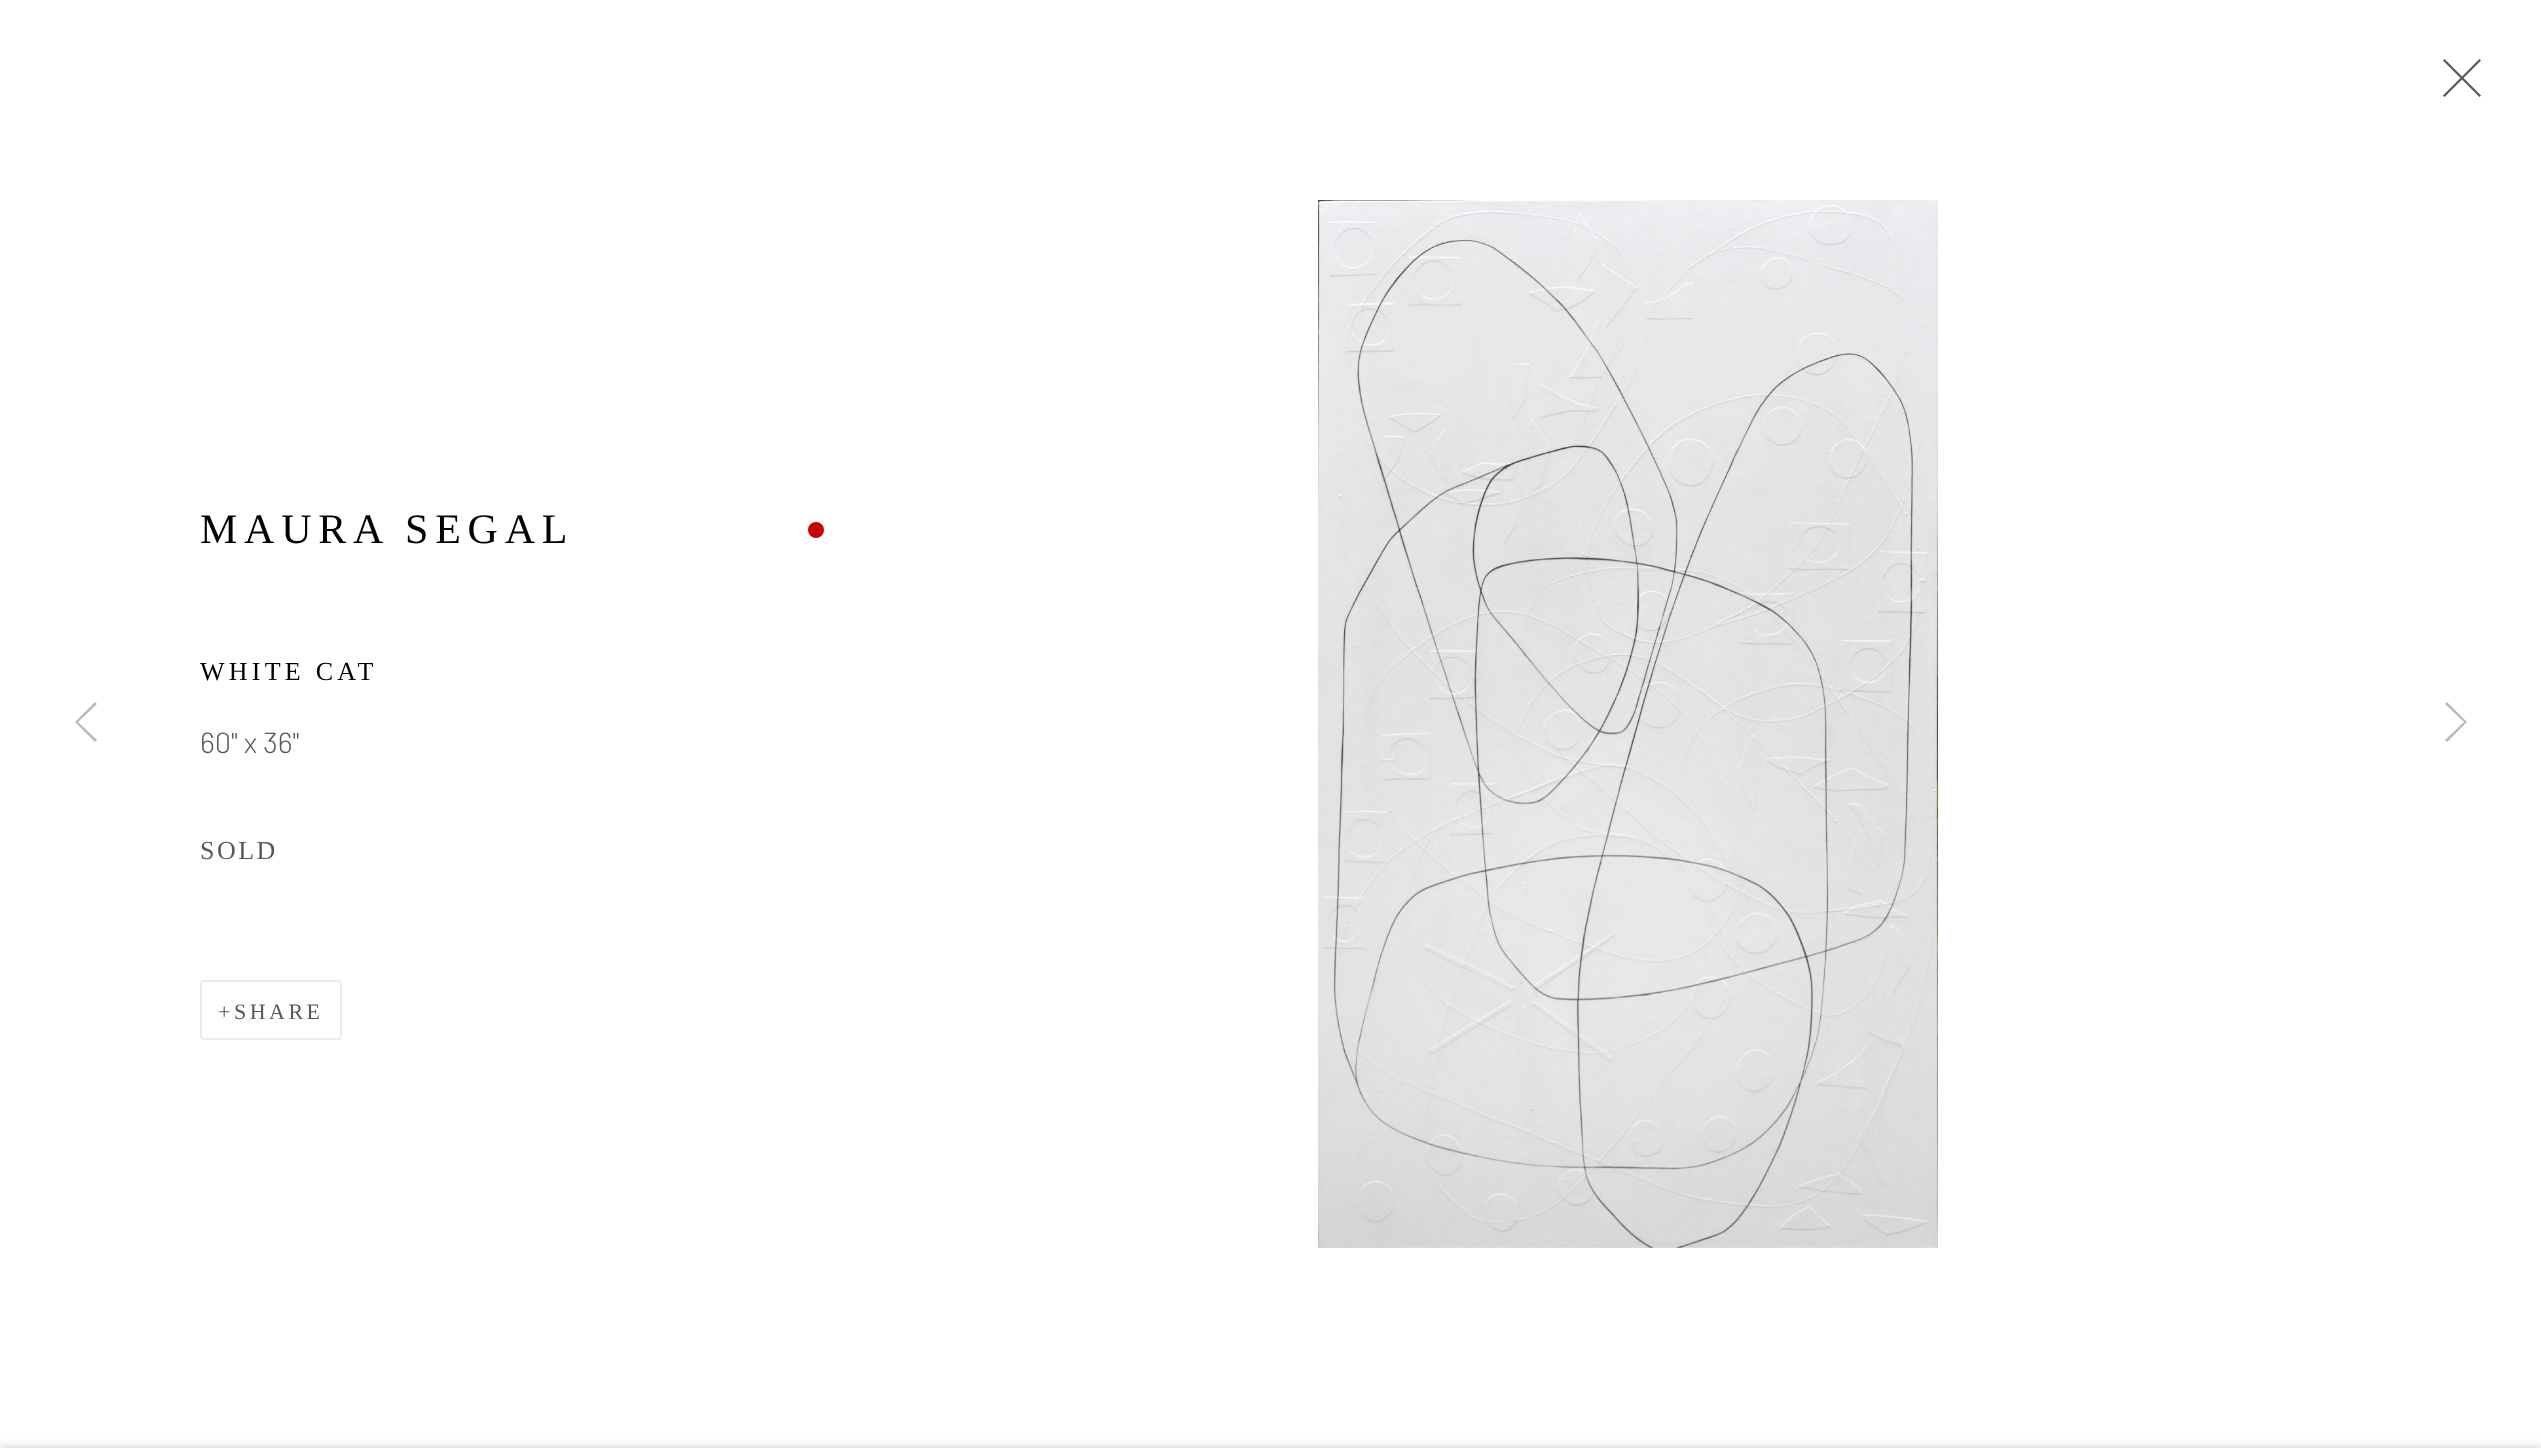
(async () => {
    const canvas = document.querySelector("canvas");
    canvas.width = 2541;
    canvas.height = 1448;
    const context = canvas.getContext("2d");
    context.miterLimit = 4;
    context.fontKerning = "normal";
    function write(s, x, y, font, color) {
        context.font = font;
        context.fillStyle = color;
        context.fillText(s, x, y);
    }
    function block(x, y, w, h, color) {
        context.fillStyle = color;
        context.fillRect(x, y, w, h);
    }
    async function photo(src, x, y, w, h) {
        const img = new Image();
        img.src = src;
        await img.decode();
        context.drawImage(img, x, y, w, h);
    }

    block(0, 0, 2541, 1448, "rgb(255, 255, 255)");
    context.fillStyle = "rgb(85, 85, 85)";
    context.beginPath();
    context.moveTo(2481, 60.5);
    context.lineTo(2479.5, 59);
    context.lineTo(2462, 76.5);
    context.lineTo(2444.5, 59);
    context.lineTo(2443, 60.5);
    context.lineTo(2460.5, 78);
    context.lineTo(2443, 95.5);
    context.lineTo(2444.5, 97);
    context.lineTo(2462, 79.5);
    context.lineTo(2479.5, 97);
    context.lineTo(2481, 95.5);
    context.lineTo(2463.5, 78);
    context.closePath();
    context.fill();
    context.letterSpacing = "6.75px";
    write("MAURA SEGAL", 200, 543, "42px Liberation Serif", "rgb(1, 1, 1)");
    context.fillStyle = "rgb(204, 0, 0)";
    context.beginPath();
    context.arc(816, 530, 8, 0, Math.PI * 2);
    context.fill();
    context.letterSpacing = "4.25px";
    write("WHITE CAT", 200, 680, "26px Liberation Serif", "rgb(1, 1, 1)");
    context.letterSpacing = "0px";
    write("60\" x 36\"", 200, 753, "300 29px Barlow", "rgb(88, 88, 88)");
    context.letterSpacing = "2.5px";
    write("SOLD", 200, 859, "26px Liberation Serif", "rgb(88, 88, 88)");
    context.beginPath();
    context.roundRect(201, 981, 140, 58, 3);
    context.strokeStyle = "rgb(235, 235, 235)";
    context.lineWidth = 2;
    context.stroke();
    context.letterSpacing = "3.5px";
    write("+SHARE", 218, 1019, "22px Liberation Serif", "rgb(88, 88, 88)");
    await photo("media/1.png", 1318, 200, 621, 1048);
    context.fillStyle = "rgb(185, 185, 185)";
    context.beginPath();
    context.moveTo(77, 724);
    context.lineTo(95, 742);
    context.lineTo(97, 740);
    context.lineTo(78, 722);
    context.lineTo(97, 704);
    context.lineTo(95, 702);
    context.lineTo(75, 722);
    context.closePath();
    context.fill();
    context.beginPath();
    context.moveTo(2467, 722);
    context.lineTo(2447, 702);
    context.lineTo(2445, 704);
    context.lineTo(2464, 722);
    context.lineTo(2445, 740);
    context.lineTo(2447, 742);
    context.closePath();
    context.fill();
    context.fillStyle = "rgba(0, 0, 0, 0.23)";
    context.filter = "blur(5px)";
    context.beginPath();
    context.rect(0, 1448, 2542, 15);
    context.fill();
    context.filter = "none";
})();
